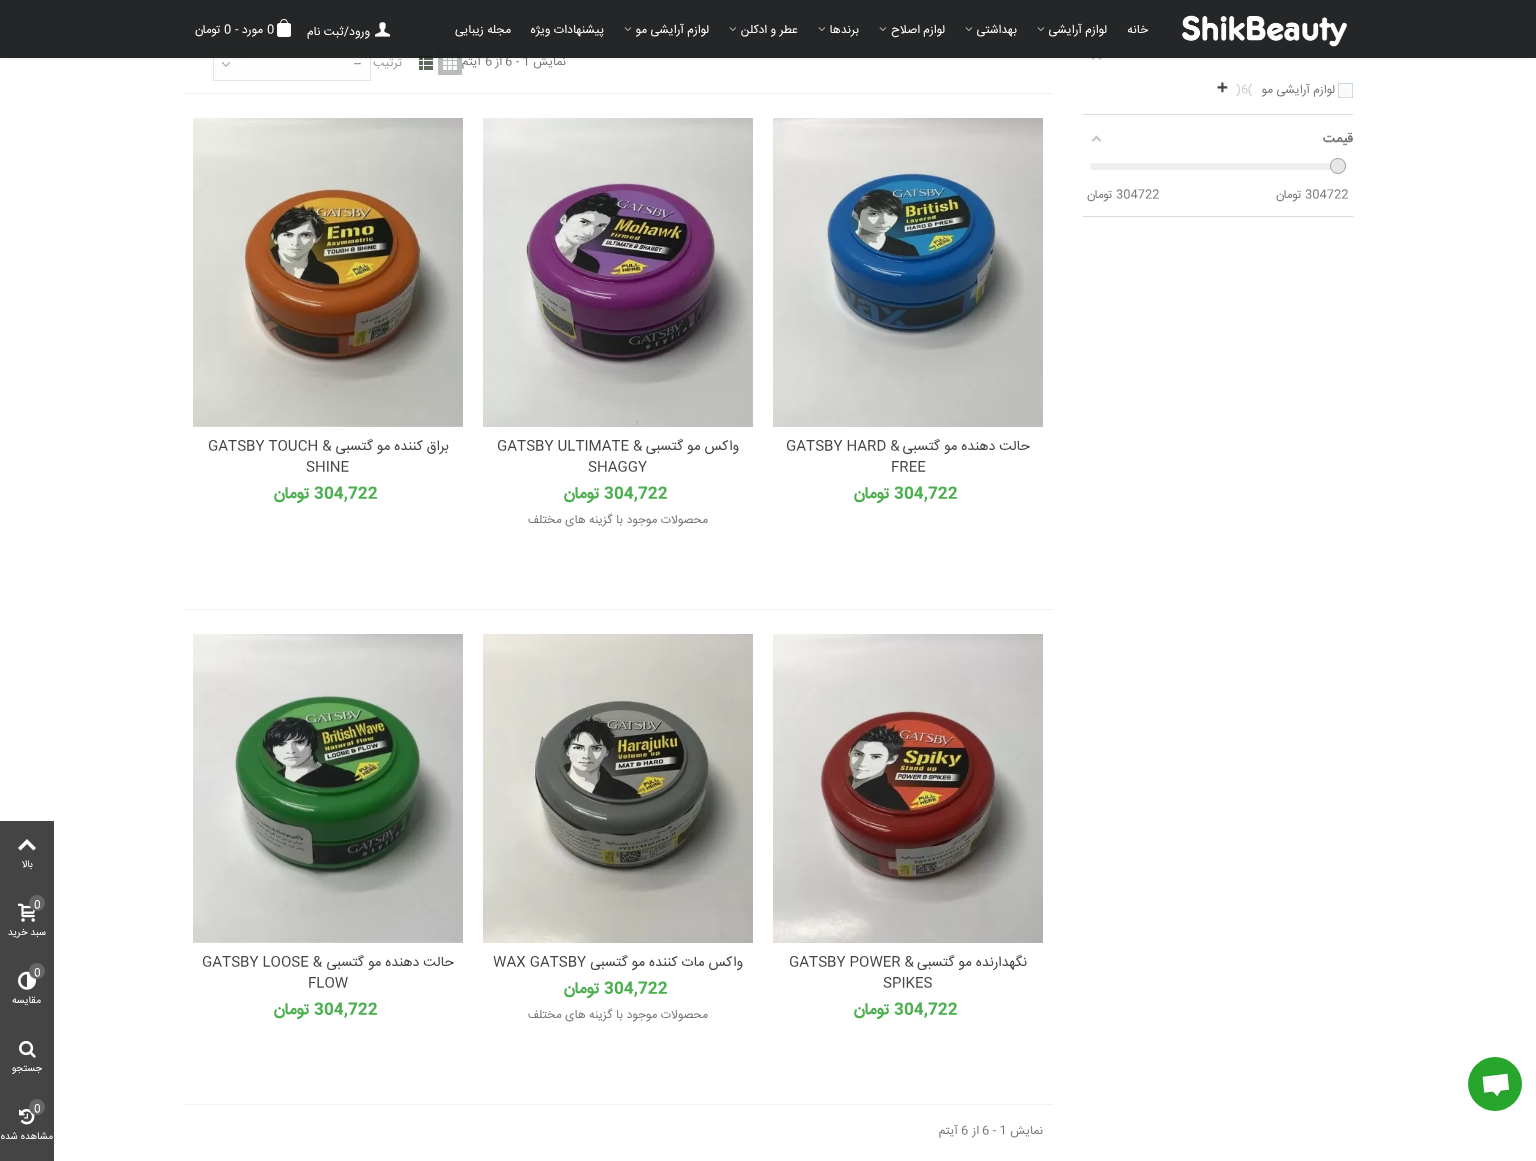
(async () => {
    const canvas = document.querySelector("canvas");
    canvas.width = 1536;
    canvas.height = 1161;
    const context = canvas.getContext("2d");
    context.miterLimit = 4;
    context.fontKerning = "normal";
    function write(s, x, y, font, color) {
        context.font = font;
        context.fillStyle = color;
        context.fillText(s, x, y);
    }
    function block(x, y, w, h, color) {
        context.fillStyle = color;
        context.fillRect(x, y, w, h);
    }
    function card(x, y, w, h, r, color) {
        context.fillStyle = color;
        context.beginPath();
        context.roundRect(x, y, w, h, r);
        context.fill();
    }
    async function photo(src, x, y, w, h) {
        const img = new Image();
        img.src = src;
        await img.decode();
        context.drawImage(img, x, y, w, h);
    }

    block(0, 0, 1536, 1161, "rgb(255, 255, 255)");
    context.fillStyle = "rgb(40, 165, 45)";
    context.beginPath();
    context.arc(1495, 1084, 27, 0, Math.PI * 2);
    context.fill();
    await photo("media/1.png", 1482, 1073, 27, 24);
    block(1083, 26, 270, 2, "rgb(244, 245, 246)");
    context.fillStyle = "rgb(197, 197, 197)";
    context.beginPath();
    context.moveTo(1096.5, 53.5);
    context.lineTo(1101.5, 58.5);
    context.lineTo(1100, 60);
    context.lineTo(1095, 55);
    context.closePath();
    context.fill();
    context.beginPath();
    context.moveTo(1096.5, 53.5);
    context.lineTo(1098, 55);
    context.lineTo(1093, 60);
    context.lineTo(1091.5, 58.5);
    context.closePath();
    context.fill();
    block(183, 35, 870, 1, "rgb(242, 242, 242)");
    block(438, 51, 24, 24, "rgb(187, 187, 187)");
    await photo("media/6.png", 443, 56, 14, 14);
    await photo("media/7.png", 419, 56, 14, 14);
    await photo("media/8.png", 361, 48, 10, 33);
    await photo("media/9.png", 213, 48, 148, 33);
    context.save();
    context.beginPath();
    context.rect(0, 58, 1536, 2);
    context.clip();
    context.fillStyle = "rgba(0, 0, 0, 0.1)";
    context.filter = "blur(2px)";
    context.beginPath();
    context.rect(0, 0, 1536, 58);
    context.fill();
    context.filter = "none";
    context.restore();
    context.direction = "rtl";
    write("نمایش", 566, 65, "12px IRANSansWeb", "rgb(119, 119, 119)");
    context.direction = "ltr";
    write("6 - 1", 505, 65, "12px IRANSansWeb", "rgb(119, 119, 119)");
    context.direction = "rtl";
    write("از", 502, 65, "12px IRANSansWeb", "rgb(119, 119, 119)");
    context.direction = "ltr";
    write("6", 485, 65, "12px IRANSansWeb", "rgb(119, 119, 119)");
    context.direction = "rtl";
    write("آیتم", 481, 65, "12px IRANSansWeb", "rgb(119, 119, 119)");
    block(0, 0, 1536, 58, "rgba(25, 26, 27, 0.95)");
    await photo("media/2.png", 1182, 15, 165, 32);
    write("خانه", 1148, 33, "12px IRANSansWeb", "rgb(255, 255, 255)");
    write("لوازم آرایشی", 1107, 33, "12px IRANSansWeb", "rgb(255, 255, 255)");
    await photo("media/3.png", 1037, 27, 8, 4);
    write("بهداشتی", 1017, 33, "12px IRANSansWeb", "rgb(255, 255, 255)");
    await photo("media/3.png", 965, 27, 8, 4);
    write("لوازم اصلاح", 945, 33, "12px IRANSansWeb", "rgb(255, 255, 255)");
    await photo("media/3.png", 879, 27, 8, 4);
    write("برند‌ها", 859, 33, "12px IRANSansWeb", "rgb(255, 255, 255)");
    await photo("media/3.png", 818, 27, 8, 4);
    write("عطر و ادکلن", 798, 33, "12px IRANSansWeb", "rgb(255, 255, 255)");
    await photo("media/3.png", 729, 27, 8, 4);
    write("لوازم آرایشی مو", 709, 33, "12px IRANSansWeb", "rgb(255, 255, 255)");
    await photo("media/3.png", 624, 27, 8, 4);
    write("پیشنهادات ویژه", 604, 33, "12px IRANSansWeb", "rgb(255, 255, 255)");
    write("مجله زیبایی", 511, 33, "12px IRANSansWeb", "rgb(255, 255, 255)");
    await photo("media/4.png", 375, 22, 16, 15);
    write("ورود/ثبت نام", 370, 35, "12px IRANSansWeb", "rgb(255, 255, 255)");
    context.beginPath();
    context.roundRect(277.5, 23.5, 13, 13, 1.5);
    context.fill();
    context.strokeStyle = "rgb(255, 255, 255)";
    context.stroke();
    context.beginPath();
    context.moveTo(284, 19);
    context.bezierCurveTo(287.5, 19, 288, 22.5, 288, 25);
    context.lineTo(280, 25);
    context.bezierCurveTo(280, 22.5, 280.5, 19, 284, 19);
    context.closePath();
    context.moveTo(284, 20);
    context.bezierCurveTo(287, 20, 287, 23, 287, 25);
    context.lineTo(281, 25);
    context.bezierCurveTo(281, 23, 281, 20, 284, 20);
    context.closePath();
    context.fill("evenodd");
    context.direction = "ltr";
    write("0", 267, 33, "12px IRANSansWeb", "rgb(255, 255, 255)");
    context.direction = "rtl";
    write("مورد", 263, 33, "12px IRANSansWeb", "rgb(255, 255, 255)");
    context.direction = "ltr";
    write("-", 235, 33, "12px IRANSansWeb", "rgb(255, 255, 255)");
    write("0", 224, 33, "12px IRANSansWeb", "rgb(255, 255, 255)");
    context.direction = "rtl";
    write("تومان", 221, 33, "12px IRANSansWeb", "rgb(255, 255, 255)");
    block(1083, 114, 270, 1, "rgb(218, 218, 218)");
    await photo("media/5.png", 1338, 83, 15, 15);
    write("لوازم آرایشی مو", 1335, 93, "12px IRANSansWeb", "rgb(119, 119, 119)");
    context.direction = "ltr";
    write("(", 1248, 93, "12px IRANSansWeb", "rgb(204, 204, 204)");
    write("6", 1241, 93, "12px IRANSansWeb", "rgb(204, 204, 204)");
    write(")", 1236, 93, "12px IRANSansWeb", "rgb(204, 204, 204)");
    write("+", 1217, 93, "bold 18px DejaVu Sans Mono", "rgb(68, 68, 68)");
    block(1083, 216, 270, 1, "rgb(218, 218, 218)");
    context.direction = "rtl";
    write("قیمت", 1353, 142, "bold 13px IRANSansWeb", "rgb(119, 119, 119)");
    context.fillStyle = "rgb(197, 197, 197)";
    context.beginPath();
    context.moveTo(1096.5, 135.5);
    context.lineTo(1101.5, 140.5);
    context.lineTo(1100, 142);
    context.lineTo(1095, 137);
    context.closePath();
    context.fill();
    context.beginPath();
    context.moveTo(1096.5, 135.5);
    context.lineTo(1098, 137);
    context.lineTo(1093, 142);
    context.lineTo(1091.5, 140.5);
    context.closePath();
    context.fill();
    card(1090, 163, 256, 7, 3.5, "rgb(238, 238, 238)");
    context.beginPath();
    context.arc(1338, 166, 7.5, 0, Math.PI * 2);
    context.strokeStyle = "rgb(170, 170, 170)";
    context.stroke();
    context.fillStyle = "rgb(231, 231, 231)";
    context.beginPath();
    context.arc(1338, 166, 7.5, 0, Math.PI * 2);
    context.fill();
    context.stroke();
    context.direction = "ltr";
    write("304722", 1305, 198, "12px IRANSansWeb", "rgb(119, 119, 119)");
    context.direction = "rtl";
    write("تومان", 1302, 198, "12px IRANSansWeb", "rgb(119, 119, 119)");
    context.direction = "ltr";
    write("304722", 1116, 198, "12px IRANSansWeb", "rgb(119, 119, 119)");
    context.direction = "rtl";
    write("تومان", 1113, 198, "12px IRANSansWeb", "rgb(119, 119, 119)");
    block(183, 93, 870, 1, "rgb(242, 242, 242)");
    write("ترتیب", 402, 66, "12px IRANSansWeb", "rgb(153, 153, 153)");
    context.direction = "ltr";
    write("--", 354, 67, "12px IRANSansWeb", "rgb(102, 102, 102)");
    await photo("media/10.png", 773, 118, 270, 309);
    context.direction = "rtl";
    write("حالت دهنده مو گتسبی", 1030, 450, "14px IRANSansWeb", "rgb(68, 68, 68)");
    context.direction = "ltr";
    write("GATSBY HARD &", 786, 450, "14px IRANSansWeb", "rgb(68, 68, 68)");
    write("FREE", 891, 471, "14px IRANSansWeb", "rgb(68, 68, 68)");
    write("304,722", 894, 498, "bold 16px IRANSansWeb", "rgb(76, 175, 80)");
    context.direction = "rtl";
    write("تومان", 890, 498, "bold 16px IRANSansWeb", "rgb(76, 175, 80)");
    await photo("media/11.png", 483, 118, 270, 309);
    write("واکس مو گتسبی", 739, 450, "14px IRANSansWeb", "rgb(68, 68, 68)");
    context.direction = "ltr";
    write("GATSBY ULTIMATE &", 497, 450, "14px IRANSansWeb", "rgb(68, 68, 68)");
    write("SHAGGY", 588, 471, "14px IRANSansWeb", "rgb(68, 68, 68)");
    write("304,722", 604, 498, "bold 16px IRANSansWeb", "rgb(76, 175, 80)");
    context.direction = "rtl";
    write("تومان", 600, 498, "bold 16px IRANSansWeb", "rgb(76, 175, 80)");
    write("محصولات موجود با گزینه های مختلف", 708, 523, "12px IRANSansWeb", "rgb(119, 119, 119)");
    await photo("media/12.png", 193, 118, 270, 309);
    write("براق کننده مو گتسبی", 449, 450, "14px IRANSansWeb", "rgb(68, 68, 68)");
    context.direction = "ltr";
    write("GATSBY TOUCH &", 208, 450, "14px IRANSansWeb", "rgb(68, 68, 68)");
    write("SHINE", 306, 471, "14px IRANSansWeb", "rgb(68, 68, 68)");
    write("304,722", 314, 498, "bold 16px IRANSansWeb", "rgb(76, 175, 80)");
    context.direction = "rtl";
    write("تومان", 310, 498, "bold 16px IRANSansWeb", "rgb(76, 175, 80)");
    block(183, 609, 870, 1, "rgb(242, 242, 242)");
    await photo("media/13.png", 773, 634, 270, 309);
    write("نگهدارنده مو گتسبی", 1027, 966, "14px IRANSansWeb", "rgb(68, 68, 68)");
    context.direction = "ltr";
    write("GATSBY POWER &", 789, 966, "14px IRANSansWeb", "rgb(68, 68, 68)");
    write("SPIKES", 883, 987, "14px IRANSansWeb", "rgb(68, 68, 68)");
    write("304,722", 894, 1014, "bold 16px IRANSansWeb", "rgb(76, 175, 80)");
    context.direction = "rtl";
    write("تومان", 890, 1014, "bold 16px IRANSansWeb", "rgb(76, 175, 80)");
    await photo("media/14.png", 483, 634, 270, 309);
    write("واکس مات کننده مو گتسبی", 743, 966, "14px IRANSansWeb", "rgb(68, 68, 68)");
    context.direction = "ltr";
    write("WAX GATSBY", 493, 966, "14px IRANSansWeb", "rgb(68, 68, 68)");
    write("304,722", 604, 993, "bold 16px IRANSansWeb", "rgb(76, 175, 80)");
    context.direction = "rtl";
    write("تومان", 600, 993, "bold 16px IRANSansWeb", "rgb(76, 175, 80)");
    write("محصولات موجود با گزینه های مختلف", 708, 1018, "12px IRANSansWeb", "rgb(119, 119, 119)");
    await photo("media/15.png", 193, 634, 270, 309);
    write("حالت دهنده مو گتسبی", 454, 966, "14px IRANSansWeb", "rgb(68, 68, 68)");
    context.direction = "ltr";
    write("GATSBY LOOSE &", 202, 966, "14px IRANSansWeb", "rgb(68, 68, 68)");
    write("FLOW", 308, 987, "14px IRANSansWeb", "rgb(68, 68, 68)");
    write("304,722", 314, 1014, "bold 16px IRANSansWeb", "rgb(76, 175, 80)");
    context.direction = "rtl";
    write("تومان", 310, 1014, "bold 16px IRANSansWeb", "rgb(76, 175, 80)");
    block(183, 1104, 870, 1, "rgb(242, 242, 242)");
    write("نمایش", 1043, 1134, "12px IRANSansWeb", "rgb(119, 119, 119)");
    context.direction = "ltr";
    write("6 - 1", 982, 1134, "12px IRANSansWeb", "rgb(119, 119, 119)");
    context.direction = "rtl";
    write("از", 979, 1134, "12px IRANSansWeb", "rgb(119, 119, 119)");
    context.direction = "ltr";
    write("6", 961, 1134, "12px IRANSansWeb", "rgb(119, 119, 119)");
    context.direction = "rtl";
    write("آیتم", 958, 1134, "12px IRANSansWeb", "rgb(119, 119, 119)");
    block(0, 821, 54, 340, "rgb(68, 68, 68)");
    context.fillStyle = "rgb(255, 255, 255)";
    context.beginPath();
    context.moveTo(18, 848);
    context.lineTo(27, 839);
    context.lineTo(36, 848);
    context.lineTo(33.5, 850.5);
    context.lineTo(27, 844);
    context.lineTo(20.5, 850.5);
    context.closePath();
    context.fill();
    write("بالا", 33, 867, "10px IRANSansWeb", "rgb(255, 255, 255)");
    await photo("media/16.png", 18, 903, 18, 19);
    context.fillStyle = "rgb(102, 102, 102)";
    context.beginPath();
    context.arc(37, 903, 8, 0, Math.PI * 2);
    context.fill();
    context.direction = "ltr";
    write("0", 34, 908, "11px IRANSansWeb", "rgb(255, 255, 255)");
    context.direction = "rtl";
    write("سبد خرید", 46, 935, "10px IRANSansWeb", "rgb(255, 255, 255)");
    await photo("media/17.png", 18, 971, 18, 19);
    context.fillStyle = "rgb(102, 102, 102)";
    context.beginPath();
    context.arc(37, 971, 8, 0, Math.PI * 2);
    context.fill();
    context.direction = "ltr";
    write("0", 34, 976, "11px IRANSansWeb", "rgb(255, 255, 255)");
    context.direction = "rtl";
    write("مقایسه", 41, 1003, "10px IRANSansWeb", "rgb(255, 255, 255)");
    await photo("media/18.png", 19, 1041, 17, 17);
    write("جستجو", 42, 1071, "10px IRANSansWeb", "rgb(255, 255, 255)");
    await photo("media/19.png", 19, 1109, 16, 16);
    context.fillStyle = "rgb(102, 102, 102)";
    context.beginPath();
    context.arc(37, 1107, 8, 0, Math.PI * 2);
    context.fill();
    context.direction = "ltr";
    write("0", 34, 1112, "11px IRANSansWeb", "rgb(255, 255, 255)");
    context.direction = "rtl";
    write("مشاهده شده", 53, 1139, "10px IRANSansWeb", "rgb(255, 255, 255)");
})();
